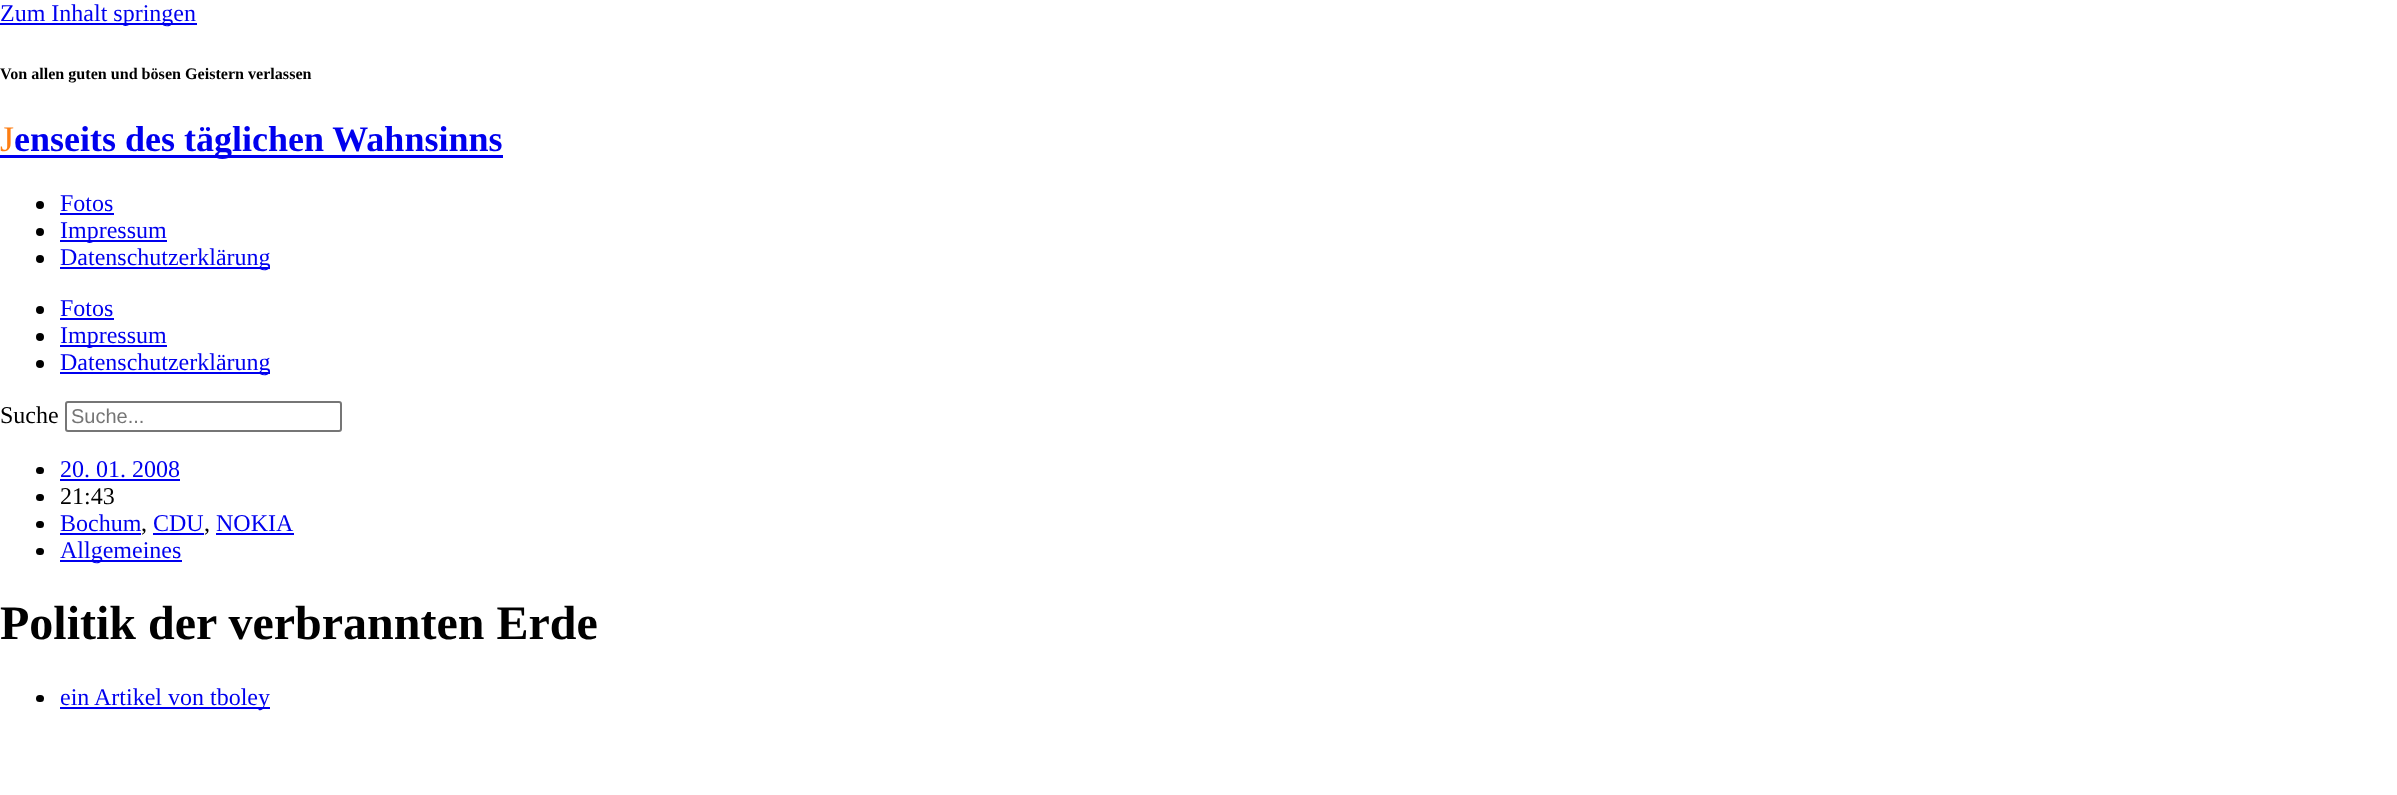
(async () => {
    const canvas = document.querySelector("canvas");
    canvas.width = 2397;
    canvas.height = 795;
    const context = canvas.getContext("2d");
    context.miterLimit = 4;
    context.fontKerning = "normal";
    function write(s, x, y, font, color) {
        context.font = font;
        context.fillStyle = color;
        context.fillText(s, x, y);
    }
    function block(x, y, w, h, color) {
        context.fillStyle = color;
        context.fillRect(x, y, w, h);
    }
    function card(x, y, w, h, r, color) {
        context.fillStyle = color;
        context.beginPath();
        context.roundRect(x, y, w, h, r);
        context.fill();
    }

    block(0, 0, 2397, 795, "rgb(255, 255, 255)");
    block(0, 23, 197, 2, "rgb(0, 0, 238)");
    write("Zum Inhalt springen", 0, 21, "24px Liberation Serif", "rgb(0, 0, 238)");
    write("Von allen guten und bösen Geistern verlassen", 0, 79, "bold 16.1px Liberation Serif", "rgb(0, 0, 0)");
    write("J", 0, 151, "36px Liberation Serif", "rgb(253, 126, 19)");
    block(0, 155, 503, 3, "rgb(0, 0, 238)");
    write("enseits des täglichen Wahnsinns", 14, 151, "bold 36px Liberation Serif", "rgb(0, 0, 238)");
    context.fillStyle = "rgb(0, 0, 0)";
    context.beginPath();
    context.arc(40, 205, 4, 0, Math.PI * 2);
    context.fill();
    write("Fotos", 60, 211, "24px Liberation Serif", "rgb(0, 0, 238)");
    block(60, 213, 54, 2, "rgb(0, 0, 238)");
    context.fillStyle = "rgb(0, 0, 0)";
    context.beginPath();
    context.arc(40, 232, 4, 0, Math.PI * 2);
    context.fill();
    block(60, 240, 107, 2, "rgb(0, 0, 238)");
    write("Impressum", 60, 238, "24px Liberation Serif", "rgb(0, 0, 238)");
    context.fillStyle = "rgb(0, 0, 0)";
    context.beginPath();
    context.arc(40, 259, 4, 0, Math.PI * 2);
    context.fill();
    block(60, 267, 210, 2, "rgb(0, 0, 238)");
    write("Datenschutzerklärung", 60, 265, "24px Liberation Serif", "rgb(0, 0, 238)");
    context.fillStyle = "rgb(0, 0, 0)";
    context.beginPath();
    context.arc(40, 310, 4, 0, Math.PI * 2);
    context.fill();
    write("Fotos", 60, 316, "24px Liberation Serif", "rgb(0, 0, 238)");
    block(60, 318, 54, 2, "rgb(0, 0, 238)");
    context.fillStyle = "rgb(0, 0, 0)";
    context.beginPath();
    context.arc(40, 337, 4, 0, Math.PI * 2);
    context.fill();
    block(60, 345, 107, 2, "rgb(0, 0, 238)");
    write("Impressum", 60, 343, "24px Liberation Serif", "rgb(0, 0, 238)");
    context.fillStyle = "rgb(0, 0, 0)";
    context.beginPath();
    context.arc(40, 364, 4, 0, Math.PI * 2);
    context.fill();
    block(60, 372, 210, 2, "rgb(0, 0, 238)");
    write("Datenschutzerklärung", 60, 370, "24px Liberation Serif", "rgb(0, 0, 238)");
    write("Suche", 0, 423, "24px Liberation Serif", "rgb(0, 0, 0)");
    context.beginPath();
    context.roundRect(66, 402, 275, 29, 2);
    context.strokeStyle = "rgb(118, 118, 118)";
    context.lineWidth = 2;
    context.stroke();
    write("Suche...", 71, 423, "20px Liberation Sans", "rgb(117, 117, 117)");
    card(36, 467, 8, 7, 3.5, "rgb(0, 0, 0)");
    write("20. 01. 2008", 60, 477, "24px Liberation Serif", "rgb(0, 0, 238)");
    block(60, 479, 120, 2, "rgb(0, 0, 238)");
    card(36, 494, 8, 7, 3.5, "rgb(0, 0, 0)");
    write("21:43", 60, 504, "24px Liberation Serif", "rgb(0, 0, 0)");
    card(36, 521, 8, 7, 3.5, "rgb(0, 0, 0)");
    write("Bochum", 60, 531, "24px Liberation Serif", "rgb(0, 0, 238)");
    write("CDU", 153, 531, "24px Liberation Serif", "rgb(0, 0, 238)");
    write("NOKIA", 216, 531, "24px Liberation Serif", "rgb(0, 0, 238)");
    write(",", 141, 531, "24px Liberation Serif", "rgb(0, 0, 0)");
    block(60, 533, 81, 2, "rgb(0, 0, 238)");
    write(",", 204, 531, "24px Liberation Serif", "rgb(0, 0, 0)");
    block(153, 533, 51, 2, "rgb(0, 0, 238)");
    block(216, 533, 78, 2, "rgb(0, 0, 238)");
    card(36, 548, 8, 7, 3.5, "rgb(0, 0, 0)");
    block(60, 560, 122, 2, "rgb(0, 0, 238)");
    write("Allgemeines", 60, 558, "24px Liberation Serif", "rgb(0, 0, 238)");
    write("Politik der verbrannten Erde", 0, 639, "bold 48px Liberation Serif", "rgb(0, 0, 0)");
    card(36, 695, 8, 7, 3.5, "rgb(0, 0, 0)");
    block(60, 707, 210, 2, "rgb(0, 0, 238)");
    write("ein Artikel von tboley", 60, 705, "24px Liberation Serif", "rgb(0, 0, 238)");
})();
